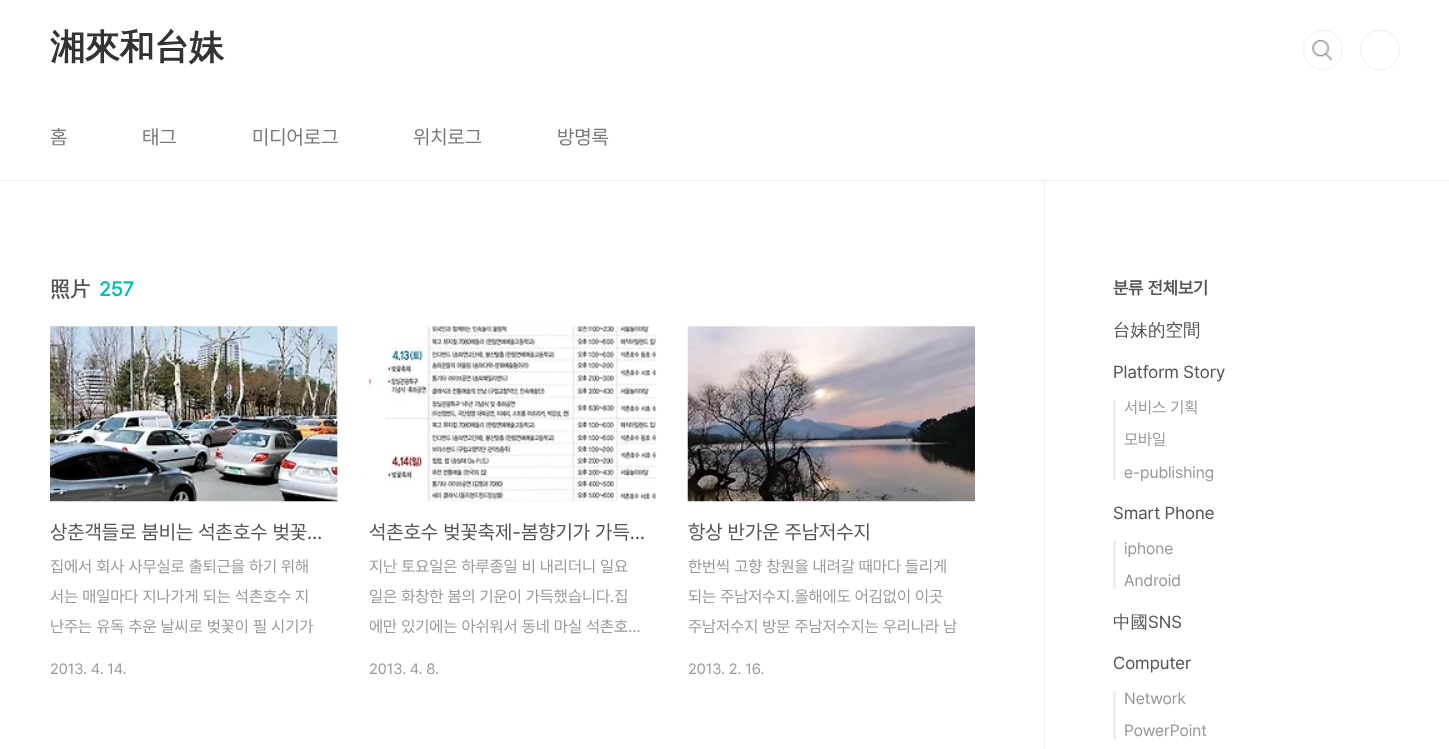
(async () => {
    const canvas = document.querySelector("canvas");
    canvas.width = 1449;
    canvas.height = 749;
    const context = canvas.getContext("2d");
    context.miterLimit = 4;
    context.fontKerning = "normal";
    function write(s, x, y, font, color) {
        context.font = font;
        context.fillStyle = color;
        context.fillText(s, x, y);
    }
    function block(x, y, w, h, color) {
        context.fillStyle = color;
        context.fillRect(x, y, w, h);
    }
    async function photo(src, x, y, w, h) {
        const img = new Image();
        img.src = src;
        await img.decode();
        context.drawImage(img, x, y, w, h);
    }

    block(0, 0, 1449, 749, "rgb(255, 255, 255)");
    block(0, 180, 1449, 1, "rgb(238, 238, 238)");
    context.letterSpacing = "-0.25px";
    write("湘來和台妹", 50, 59, "bold 35px WenQuanYi Zen Hei", "rgb(51, 51, 51)");
    context.beginPath();
    context.roundRect(1304.5, 31.5, 36, 37, 18);
    context.strokeStyle = "rgb(238, 238, 238)";
    context.stroke();
    context.fillStyle = "rgb(255, 255, 255)";
    context.beginPath();
    context.arc(1323, 50, 20, 0, Math.PI * 2);
    context.fill();
    await photo("media/1.png", 1312, 39, 21, 22);
    context.beginPath();
    context.arc(1323, 50, 19.5, 0, Math.PI * 2);
    context.stroke();
    context.beginPath();
    context.arc(1380, 50, 19.5, 0, Math.PI * 2);
    context.stroke();
    context.letterSpacing = "0px";
    write("홈", 50, 144, "20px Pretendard", "rgb(119, 119, 119)");
    write("태그", 142, 144, "20px Pretendard", "rgb(119, 119, 119)");
    write("미디어로그", 252, 144, "20px Pretendard", "rgb(119, 119, 119)");
    write("위치로그", 413, 144, "20px Pretendard", "rgb(119, 119, 119)");
    write("방명록", 557, 144, "20px Pretendard", "rgb(119, 119, 119)");
    write("照片", 50, 296, "bold 20px WenQuanYi Zen Hei", "rgb(85, 85, 85)");
    write("257", 99, 296, "bold 20px Pretendard", "rgb(4, 190, 184)");
    block(50, 326, 288, 175, "rgb(248, 248, 248)");
    await photo("media/2.png", 50, 326, 288, 176);
    write("상춘객들로 붐비는 석촌호수 벚꽃…", 50, 539, "20px Pretendard", "rgb(85, 85, 85)");
    write("집에서 회사 사무실로 출퇴근을 하기 위해", 50, 572, "16.25px Pretendard", "rgb(153, 153, 153)");
    write("서는 매일마다 지나가게 되는 석촌호수 지", 50, 602, "16.25px Pretendard", "rgb(153, 153, 153)");
    write("난주는 유독 추운 날씨로 벚꽃이 필 시기가", 50, 632, "16.25px Pretendard", "rgb(153, 153, 153)");
    write("2013. 4. 14.", 50, 674, "15px Pretendard", "rgb(153, 153, 153)");
    await photo("media/3.png", 368, 326, 289, 176);
    write("석촌호수 벚꽃축제-봄향기가 가득…", 369, 539, "20px Pretendard", "rgb(85, 85, 85)");
    write("지난 토요일은 하루종일 비 내리더니 일요", 369, 572, "16.25px Pretendard", "rgb(153, 153, 153)");
    write("일은 화창한 봄의 기운이 가득했습니다.집", 369, 602, "16.25px Pretendard", "rgb(153, 153, 153)");
    write("에만 있기에는 아쉬워서 동네 마실 석촌호…", 369, 632, "16.25px Pretendard", "rgb(153, 153, 153)");
    write("2013. 4. 8.", 369, 674, "15px Pretendard", "rgb(153, 153, 153)");
    await photo("media/4.png", 687, 326, 288, 176);
    write("항상 반가운 주남저수지", 688, 539, "20px Pretendard", "rgb(85, 85, 85)");
    write("한번씩 고향 창원을 내려갈 때마다 들리게", 688, 572, "16.25px Pretendard", "rgb(153, 153, 153)");
    write("되는 주남저수지.올해에도 어김없이 이곳", 688, 602, "16.25px Pretendard", "rgb(153, 153, 153)");
    write("주남저수지 방문 주남저수지는 우리나라 남", 688, 632, "16.25px Pretendard", "rgb(153, 153, 153)");
    write("2013. 2. 16.", 688, 674, "15px Pretendard", "rgb(153, 153, 153)");
    block(1044, 181, 1, 568, "rgb(238, 238, 238)");
    write("분류 전체보기", 1113, 294, "bold 17.5px Pretendard", "rgb(85, 85, 85)");
    write("台妹的空間", 1113, 336, "500 17.5px WenQuanYi Zen Hei", "rgb(85, 85, 85)");
    write("Platform Story", 1113, 378, "17.5px Pretendard", "rgb(85, 85, 85)");
    block(1113, 400, 3, 80, "rgb(238, 238, 238)");
    write("서비스 기획", 1124, 413, "16.25px Pretendard", "rgb(153, 153, 153)");
    write("모바일", 1124, 445, "16.25px Pretendard", "rgb(153, 153, 153)");
    write("e-publishing", 1124, 478, "16.25px Pretendard", "rgb(153, 153, 153)");
    write("Smart Phone", 1113, 519, "17.5px Pretendard", "rgb(85, 85, 85)");
    block(1113, 541, 3, 48, "rgb(238, 238, 238)");
    write("iphone", 1124, 554, "16.25px Pretendard", "rgb(153, 153, 153)");
    write("Android", 1124, 586, "16.25px Pretendard", "rgb(153, 153, 153)");
    write("中國", 1113, 628, "500 17.5px WenQuanYi Zen Hei", "rgb(85, 85, 85)");
    write("SNS", 1148, 628, "17.5px Pretendard", "rgb(85, 85, 85)");
    write("Computer", 1113, 669, "17.5px Pretendard", "rgb(85, 85, 85)");
    block(1113, 691, 3, 48, "rgb(238, 238, 238)");
    write("Network", 1124, 704, "16.25px Pretendard", "rgb(153, 153, 153)");
    write("PowerPoint", 1124, 736, "16.25px Pretendard", "rgb(153, 153, 153)");
})();
